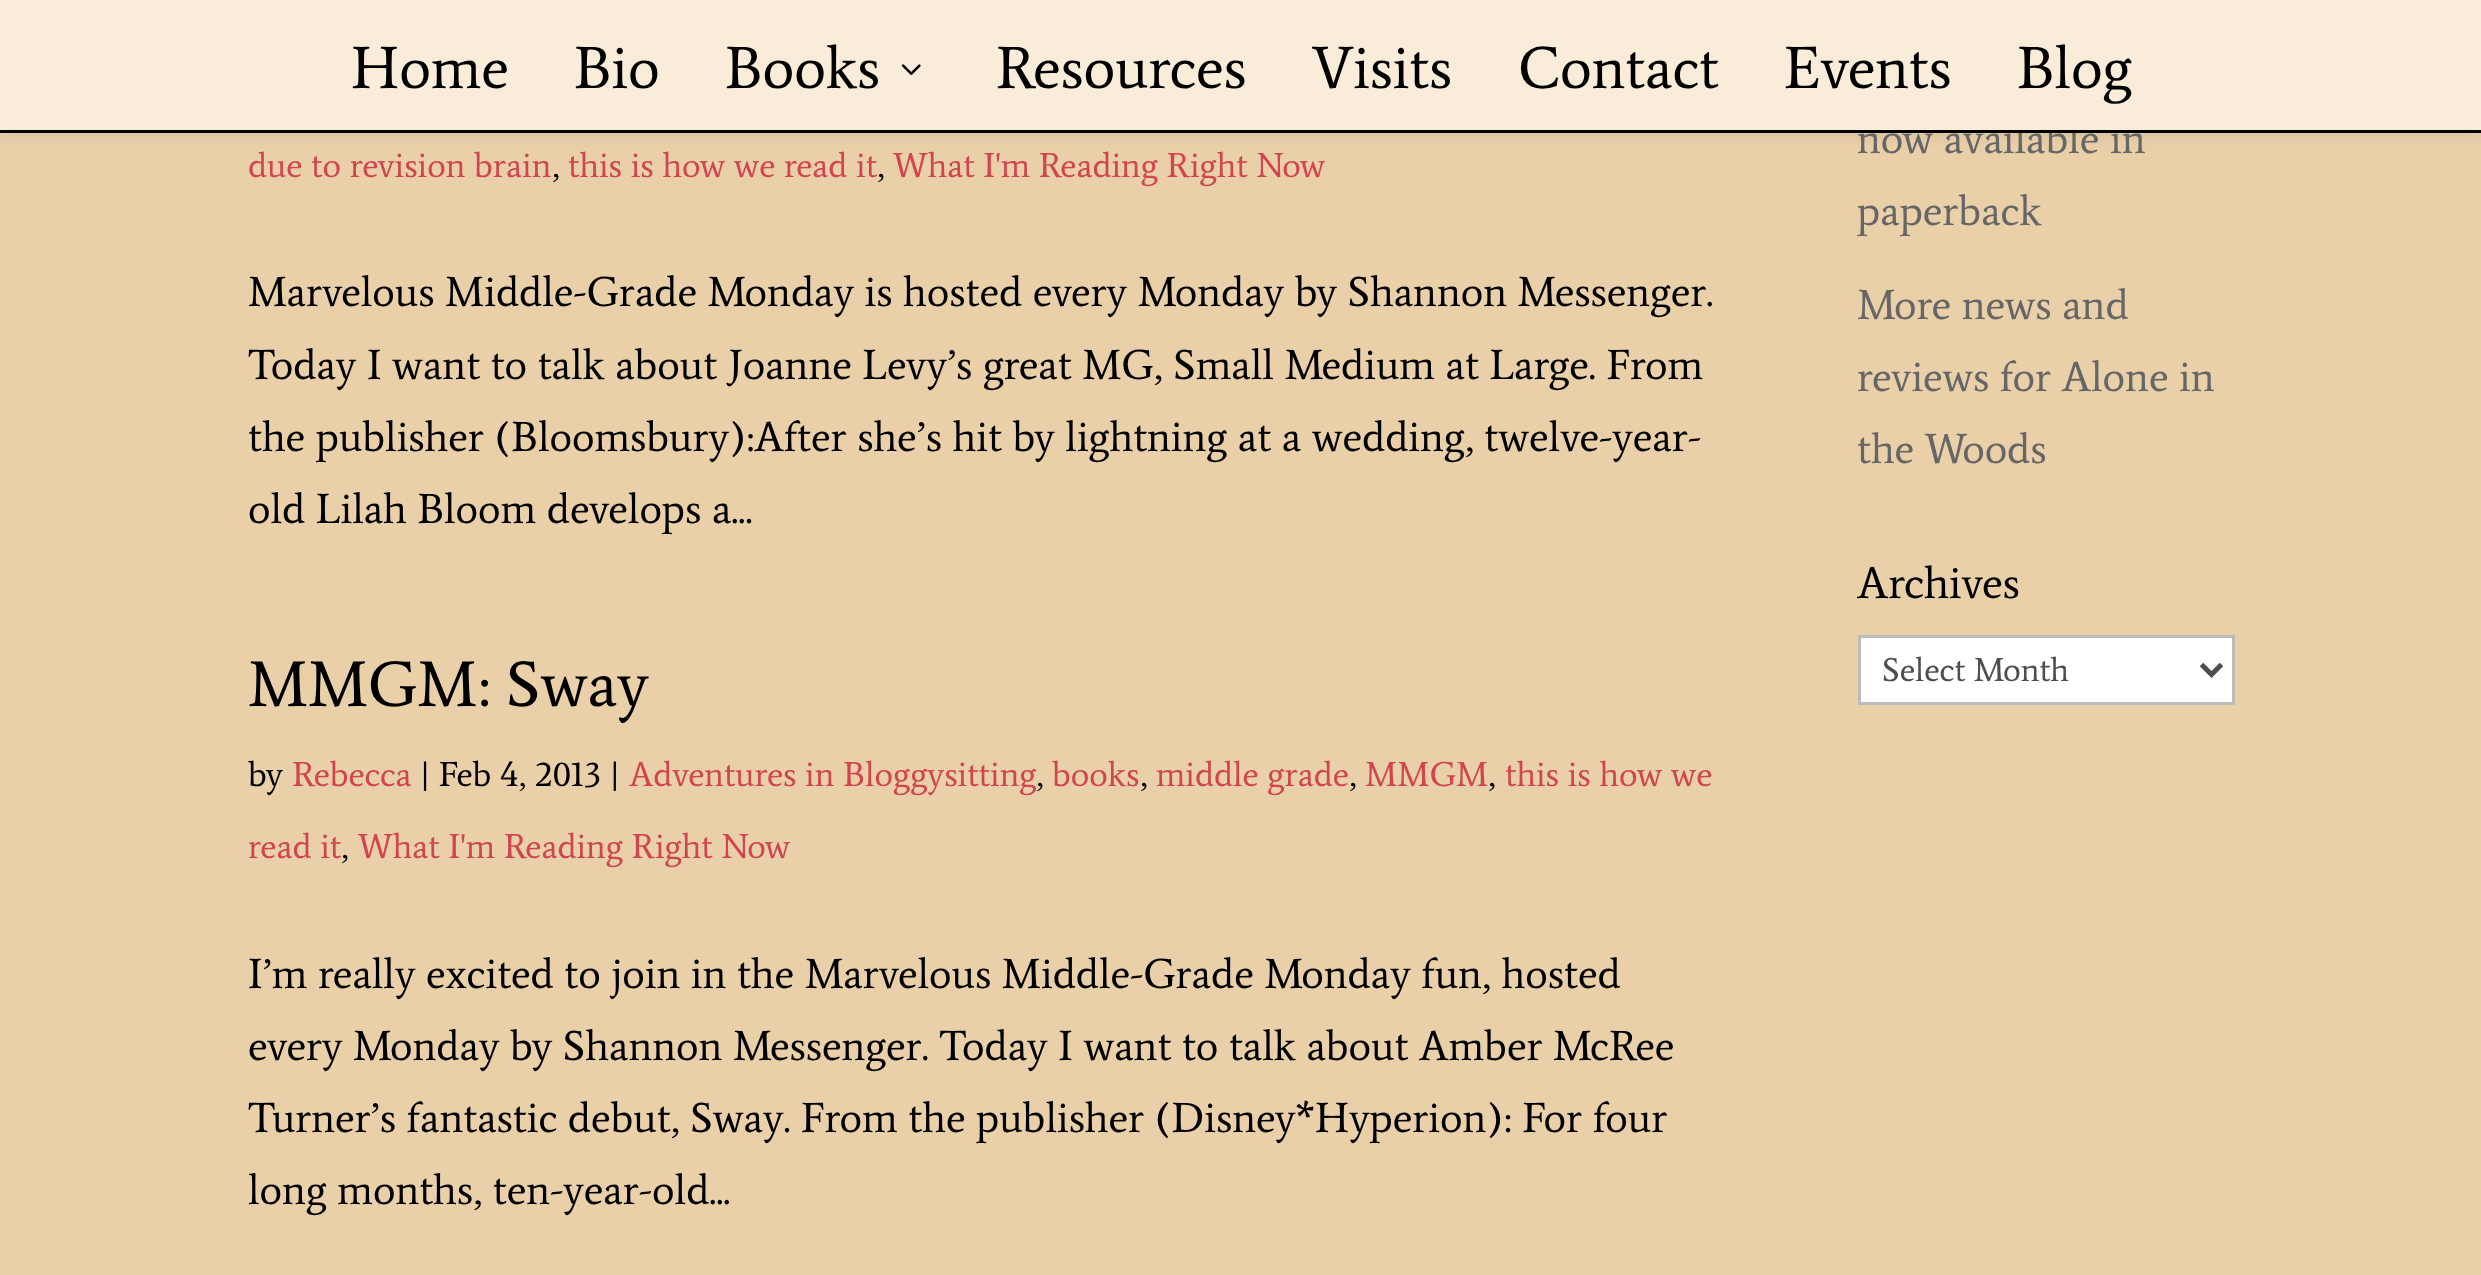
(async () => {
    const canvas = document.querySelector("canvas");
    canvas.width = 2481;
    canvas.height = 1275;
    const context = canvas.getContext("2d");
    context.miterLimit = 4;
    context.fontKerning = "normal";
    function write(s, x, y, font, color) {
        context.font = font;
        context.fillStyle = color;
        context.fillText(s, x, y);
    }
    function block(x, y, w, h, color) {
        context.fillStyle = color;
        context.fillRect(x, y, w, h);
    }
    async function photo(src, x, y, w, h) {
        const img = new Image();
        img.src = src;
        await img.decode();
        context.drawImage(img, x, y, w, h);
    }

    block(0, 0, 2481, 1275, "rgb(233, 208, 169)");
    context.fillStyle = "rgba(0, 0, 0, 0.1)";
    context.filter = "blur(9px)";
    context.beginPath();
    context.rect(0, 0, 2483, 133);
    context.fill();
    context.filter = "none";
    write("now available in", 1857, 153, "42.5px Average", "rgb(102, 102, 102)");
    block(0, 0, 2481, 130, "rgb(249, 236, 216)");
    block(0, 130, 2481, 3, "rgb(0, 0, 0)");
    write("Home", 351, 88, "60px Average", "rgb(0, 0, 0)");
    write("Bio", 574, 88, "60px Average", "rgb(0, 0, 0)");
    write("Books", 725, 88, "60px Average", "rgb(0, 0, 0)");
    await photo("media/1.png", 901, 64, 20, 11);
    write("Resources", 996, 88, "60px Average", "rgb(0, 0, 0)");
    write("Visits", 1312, 88, "60px Average", "rgb(0, 0, 0)");
    write("Contact", 1518, 88, "60px Average", "rgb(0, 0, 0)");
    write("Events", 1784, 88, "60px Average", "rgb(0, 0, 0)");
    write("Blog", 2017, 88, "60px Average", "rgb(0, 0, 0)");
    write("due to revision brain", 248, 177, "35px Average", "rgb(209, 69, 80)");
    write(",", 552, 177, "35px Average", "rgb(0, 0, 0)");
    write("this is how we read it", 568, 177, "35px Average", "rgb(209, 69, 80)");
    write(",", 877, 177, "35px Average", "rgb(0, 0, 0)");
    write("What I'm Reading Right Now", 893, 177, "35px Average", "rgb(209, 69, 80)");
    write("Marvelous Middle-Grade Monday is hosted every Monday by Shannon Messenger.", 248, 306, "42.5px Average", "rgb(0, 0, 0)");
    write("Today I want to talk about Joanne Levy’s great MG, Small Medium at Large. From", 248, 379, "42.5px Average", "rgb(0, 0, 0)");
    write("the publisher (Bloomsbury):After she’s hit by lightning at a wedding, twelve-year-", 248, 451, "42.5px Average", "rgb(0, 0, 0)");
    write("old Lilah Bloom develops a...", 248, 523, "42.5px Average", "rgb(0, 0, 0)");
    write("MMGM: Sway", 248, 706, "65px Average", "rgb(0, 0, 0)");
    write("by", 248, 786, "35px Average", "rgb(0, 0, 0)");
    write("Rebecca", 292, 786, "35px Average", "rgb(209, 69, 80)");
    write("| Feb 4, 2013 |", 420, 786, "35px Average", "rgb(0, 0, 0)");
    write("Adventures in Bloggysitting", 629, 786, "35px Average", "rgb(209, 69, 80)");
    write(",", 1036, 786, "35px Average", "rgb(0, 0, 0)");
    write("books", 1052, 786, "35px Average", "rgb(209, 69, 80)");
    write(",", 1140, 786, "35px Average", "rgb(0, 0, 0)");
    write("middle grade", 1156, 786, "35px Average", "rgb(209, 69, 80)");
    write(",", 1349, 786, "35px Average", "rgb(0, 0, 0)");
    write("MMGM", 1365, 786, "35px Average", "rgb(209, 69, 80)");
    write(",", 1488, 786, "35px Average", "rgb(0, 0, 0)");
    write("this is how we", 1505, 786, "35px Average", "rgb(209, 69, 80)");
    write("read it", 248, 858, "35px Average", "rgb(209, 69, 80)");
    write(",", 341, 858, "35px Average", "rgb(0, 0, 0)");
    write("What I'm Reading Right Now", 358, 858, "35px Average", "rgb(209, 69, 80)");
    write("I’m really excited to join in the Marvelous Middle-Grade Monday fun, hosted", 248, 988, "42.5px Average", "rgb(0, 0, 0)");
    write("every Monday by Shannon Messenger. Today I want to talk about Amber McRee", 248, 1060, "42.5px Average", "rgb(0, 0, 0)");
    write("Turner’s fantastic debut, Sway. From the publisher (Disney*Hyperion): For four", 248, 1132, "42.5px Average", "rgb(0, 0, 0)");
    write("long months, ten-year-old...", 248, 1204, "42.5px Average", "rgb(0, 0, 0)");
    write("paperback", 1857, 225, "42.5px Average", "rgb(102, 102, 102)");
    write("More news and", 1857, 319, "42.5px Average", "rgb(102, 102, 102)");
    write("reviews for Alone in", 1857, 391, "42.5px Average", "rgb(102, 102, 102)");
    write("the Woods", 1857, 463, "42.5px Average", "rgb(102, 102, 102)");
    write("Archives", 1857, 598, "45px Average", "rgb(0, 0, 0)");
    context.fillStyle = "rgb(255, 255, 255)";
    context.beginPath();
    context.rect(1859.5, 636.5, 374, 67);
    context.fill();
    context.strokeStyle = "rgb(187, 187, 187)";
    context.lineWidth = 3;
    context.stroke();
    context.beginPath();
    context.moveTo(2201.5, 664.5);
    context.lineTo(2211.5, 674.5);
    context.lineTo(2221.5, 664.5);
    context.strokeStyle = "rgb(78, 78, 78)";
    context.lineWidth = 5;
    context.stroke();
    write("Select Month", 1882, 681, "33.5px Average", "rgb(78, 78, 78)");
})();
